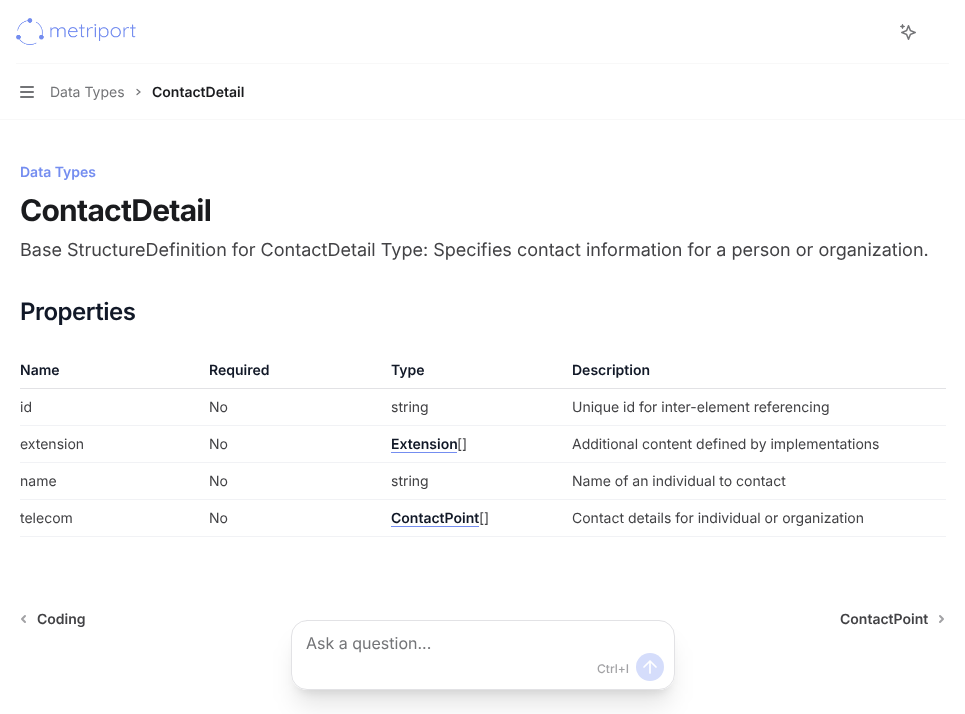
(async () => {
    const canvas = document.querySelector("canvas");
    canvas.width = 965;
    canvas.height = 714;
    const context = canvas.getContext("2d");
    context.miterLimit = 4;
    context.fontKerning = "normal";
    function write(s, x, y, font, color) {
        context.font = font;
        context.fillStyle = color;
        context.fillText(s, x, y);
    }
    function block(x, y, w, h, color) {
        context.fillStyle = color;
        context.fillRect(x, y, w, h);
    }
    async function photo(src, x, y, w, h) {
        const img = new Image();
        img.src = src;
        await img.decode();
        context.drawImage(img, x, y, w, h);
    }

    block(0, 0, 965, 714, "rgb(255, 255, 255)");
    block(16, 63, 933, 1, "rgb(248, 248, 248)");
    await photo("media/1.png", 16, 18, 120, 27);
    await photo("media/2.png", 900, 24, 16, 16);
    await photo("media/3.png", 20, 86, 14, 12);
    write("Data Types", 50, 97, "14px Inter", "rgb(115, 116, 119)");
    context.beginPath();
    context.moveTo(137, 89.5);
    context.lineTo(140, 92);
    context.lineTo(137, 94.5);
    context.strokeStyle = "rgb(115, 116, 119)";
    context.lineWidth = 1.2;
    context.lineCap = "round";
    context.stroke();
    write("ContactDetail", 152, 97, "600 14px Inter", "rgb(26, 27, 30)");
    block(0, 119, 965, 1, "rgb(248, 248, 248)");
    write("Data Types", 20, 177, "600 14px Inter", "rgb(116, 141, 240)");
    context.letterSpacing = "-0.75px";
    write("ContactDetail", 20, 221, "bold 30px Inter", "rgb(26, 27, 30)");
    context.letterSpacing = "0px";
    write("Base StructureDefinition for ContactDetail Type: Specifies contact information for a person or organization.", 20, 256, "18px Inter", "rgb(66, 66, 69)");
    context.letterSpacing = "-0.5px";
    write("Properties", 20, 320, "600 24px Inter", "rgb(17, 24, 39)");
    block(20, 388, 926, 1, "rgb(226, 226, 229)");
    context.letterSpacing = "0px";
    write("Name", 20, 375, "600 14px Inter", "rgb(17, 24, 39)");
    write("Required", 209, 375, "600 14px Inter", "rgb(17, 24, 39)");
    write("Type", 391, 375, "600 14px Inter", "rgb(17, 24, 39)");
    write("Description", 572, 375, "600 14px Inter", "rgb(17, 24, 39)");
    block(20, 425, 926, 1, "rgb(241, 242, 245)");
    write("id", 20, 412, "14px Inter", "rgb(66, 66, 69)");
    write("No", 209, 412, "14px Inter", "rgb(66, 66, 69)");
    write("string", 391, 412, "14px Inter", "rgb(66, 66, 69)");
    write("Unique id for inter-element referencing", 572, 412, "14px Inter", "rgb(66, 66, 69)");
    block(20, 462, 926, 1, "rgb(241, 242, 245)");
    write("extension", 20, 449, "14px Inter", "rgb(66, 66, 69)");
    write("No", 209, 449, "14px Inter", "rgb(66, 66, 69)");
    write("Extension", 391, 449, "600 14px Inter", "rgb(17, 24, 39)");
    block(391, 452, 66, 1, "rgb(116, 141, 240)");
    write("[]", 457, 449, "14px Inter", "rgb(66, 66, 69)");
    write("Additional content defined by implementations", 572, 449, "14px Inter", "rgb(66, 66, 69)");
    block(20, 499, 926, 1, "rgb(241, 242, 245)");
    write("name", 20, 486, "14px Inter", "rgb(66, 66, 69)");
    write("No", 209, 486, "14px Inter", "rgb(66, 66, 69)");
    write("string", 391, 486, "14px Inter", "rgb(66, 66, 69)");
    write("Name of an individual to contact", 572, 486, "14px Inter", "rgb(66, 66, 69)");
    block(20, 536, 926, 1, "rgb(241, 242, 245)");
    write("telecom", 20, 523, "14px Inter", "rgb(66, 66, 69)");
    write("No", 209, 523, "14px Inter", "rgb(66, 66, 69)");
    write("ContactPoint", 391, 523, "600 14px Inter", "rgb(17, 24, 39)");
    block(391, 526, 88, 1, "rgb(116, 141, 240)");
    write("[]", 479, 523, "14px Inter", "rgb(66, 66, 69)");
    write("Contact details for individual or organization", 572, 523, "14px Inter", "rgb(66, 66, 69)");
    context.beginPath();
    context.moveTo(25, 616);
    context.lineTo(22, 619);
    context.lineTo(25, 622);
    context.strokeStyle = "rgb(162, 162, 165)";
    context.lineWidth = 2;
    context.lineJoin = "round";
    context.stroke();
    write("Coding", 37, 624, "600 14px Inter", "rgb(66, 66, 69)");
    write("ContactPoint", 840, 624, "600 14px Inter", "rgb(66, 66, 69)");
    context.beginPath();
    context.moveTo(940, 622);
    context.lineTo(943, 619);
    context.lineTo(940, 616);
    context.stroke();
    context.save();
    context.beginPath();
    context.moveTo(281, 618);
    context.lineTo(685, 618);
    context.lineTo(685, 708);
    context.lineTo(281, 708);
    context.closePath();
    context.moveTo(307, 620);
    context.lineTo(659, 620);
    context.bezierCurveTo(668, 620, 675, 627, 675, 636);
    context.lineTo(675, 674);
    context.bezierCurveTo(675, 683, 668, 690, 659, 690);
    context.lineTo(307, 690);
    context.bezierCurveTo(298, 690, 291, 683, 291, 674);
    context.lineTo(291, 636);
    context.bezierCurveTo(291, 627, 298, 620, 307, 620);
    context.closePath();
    context.clip("evenodd");
    context.fillStyle = "rgba(0, 0, 0, 0.1)";
    context.filter = "blur(5px)";
    context.beginPath();
    context.roundRect(297, 634, 372, 58, 10);
    context.fill();
    context.filter = "none";
    context.restore();
    context.save();
    context.beginPath();
    context.moveTo(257, 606);
    context.lineTo(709, 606);
    context.lineTo(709, 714);
    context.lineTo(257, 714);
    context.closePath();
    context.moveTo(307, 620);
    context.lineTo(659, 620);
    context.bezierCurveTo(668, 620, 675, 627, 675, 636);
    context.lineTo(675, 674);
    context.bezierCurveTo(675, 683, 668, 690, 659, 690);
    context.lineTo(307, 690);
    context.bezierCurveTo(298, 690, 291, 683, 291, 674);
    context.lineTo(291, 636);
    context.bezierCurveTo(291, 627, 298, 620, 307, 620);
    context.closePath();
    context.clip("evenodd");
    context.fillStyle = "rgba(0, 0, 0, 0.1)";
    context.filter = "blur(12.5px)";
    context.beginPath();
    context.roundRect(296, 645, 374, 60, 11);
    context.fill();
    context.filter = "none";
    context.restore();
    context.fillStyle = "rgba(255, 255, 255, 0.9)";
    context.beginPath();
    context.roundRect(291.5, 620.5, 383, 69, 15.5);
    context.fill();
    context.strokeStyle = "rgb(226, 226, 229)";
    context.lineWidth = 1;
    context.lineJoin = "miter";
    context.stroke();
    write("Ask a question...", 306, 649, "16px Inter", "rgb(115, 116, 119)");
    write("Ctrl+I", 597, 673, "500 12px Inter", "rgb(162, 162, 165)");
    context.fillStyle = "rgb(213, 221, 251)";
    context.beginPath();
    context.arc(650, 667, 14, 0, Math.PI * 2);
    context.fill();
    context.beginPath();
    context.moveTo(644, 667);
    context.lineTo(650, 661);
    context.lineTo(656, 667);
    context.moveTo(650, 673);
    context.lineTo(650, 661);
    context.strokeStyle = "rgb(255, 255, 255)";
    context.lineWidth = 1.7;
    context.lineJoin = "round";
    context.stroke();
})();
